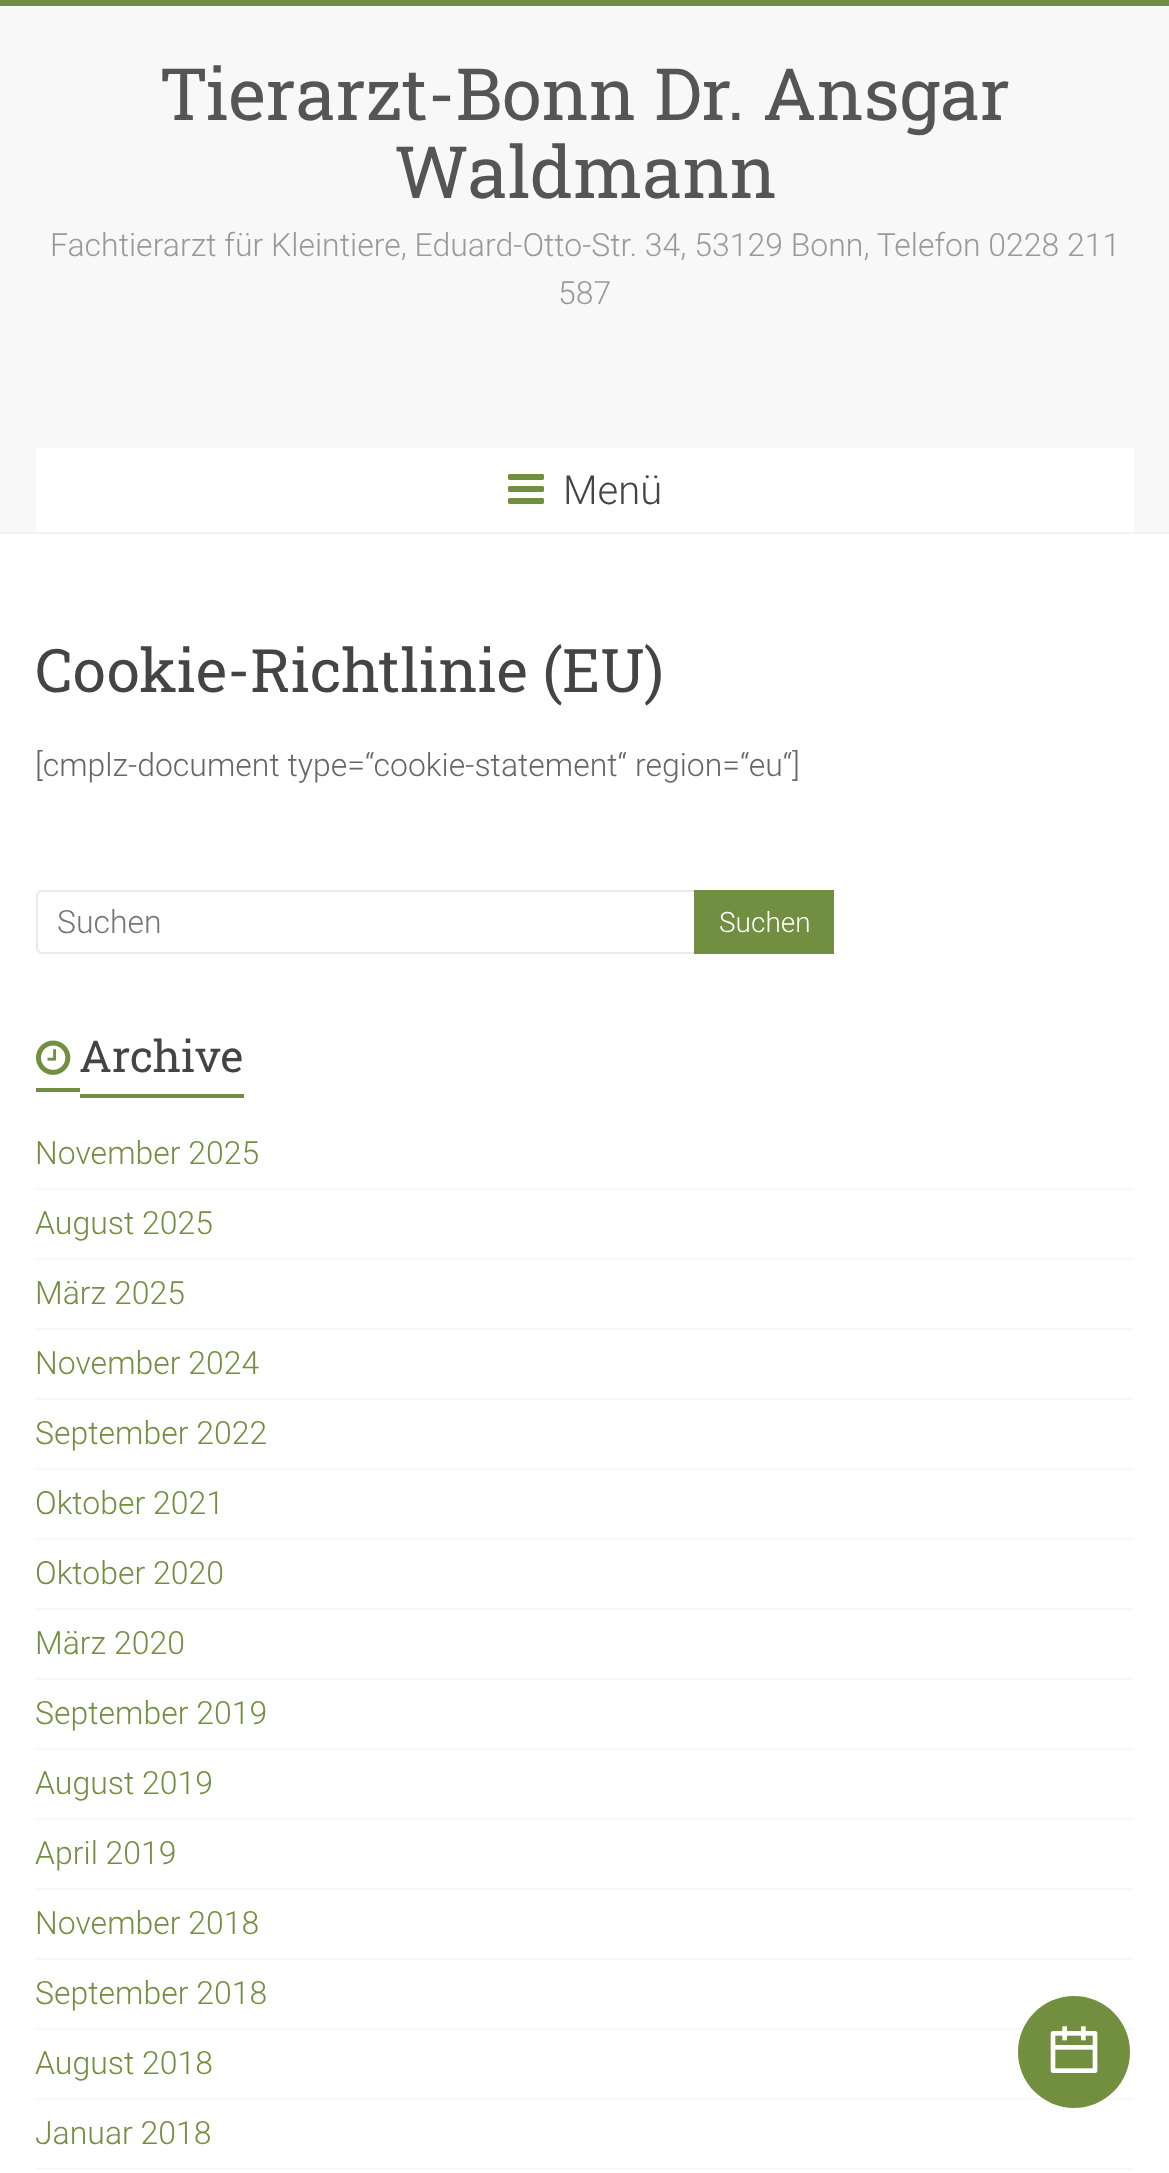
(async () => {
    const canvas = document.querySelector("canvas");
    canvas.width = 1169;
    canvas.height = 2173;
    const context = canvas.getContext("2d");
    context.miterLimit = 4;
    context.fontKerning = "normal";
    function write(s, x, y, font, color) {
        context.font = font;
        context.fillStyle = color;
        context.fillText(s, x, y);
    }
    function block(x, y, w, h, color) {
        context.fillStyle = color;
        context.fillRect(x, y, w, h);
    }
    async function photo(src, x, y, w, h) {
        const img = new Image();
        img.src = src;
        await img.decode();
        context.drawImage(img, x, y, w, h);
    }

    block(0, 0, 1169, 2173, "rgb(255, 255, 255)");
    block(0, 0, 1169, 6, "rgb(114, 143, 65)");
    block(0, 6, 1169, 526, "rgb(248, 248, 248)");
    block(0, 532, 1169, 2, "rgb(242, 242, 242)");
    write("Tierarzt-Bonn Dr. Ansgar", 159, 120, "72px Roboto Slab", "rgb(85, 85, 85)");
    write("Waldmann", 394, 198, "72px Roboto Slab", "rgb(85, 85, 85)");
    write("Fachtierarzt für Kleintiere, Eduard-Otto-Str. 34, 53129 Bonn, Telefon 0228 211", 50, 256, "300 32px Roboto", "rgb(153, 153, 153)");
    write("587", 558, 304, "300 32px Roboto", "rgb(153, 153, 153)");
    block(36, 448, 1098, 84, "rgb(255, 255, 255)");
    await photo("media/1.png", 508, 474, 36, 30);
    write("Menü", 563, 504, "300 40px Roboto", "rgb(68, 68, 68)");
    write("Cookie-Richtlinie (EU)", 35, 692, "60px Roboto Slab", "rgb(68, 68, 68)");
    write("[cmplz-document type=“cookie-statement“ region=“eu“]", 35, 776, "300 32px Roboto", "rgb(102, 102, 102)");
    context.fillStyle = "rgb(234, 234, 234)";
    context.beginPath();
    context.moveTo(42, 890);
    context.lineTo(694, 890);
    context.lineTo(694, 954);
    context.lineTo(42, 954);
    context.bezierCurveTo(39, 954, 36, 951, 36, 948);
    context.lineTo(36, 896);
    context.bezierCurveTo(36, 893, 39, 890, 42, 890);
    context.closePath();
    context.moveTo(42, 892);
    context.lineTo(694, 892);
    context.lineTo(694, 952);
    context.lineTo(42, 952);
    context.bezierCurveTo(40, 952, 38, 950, 38, 948);
    context.lineTo(38, 896);
    context.bezierCurveTo(38, 894, 40, 892, 42, 892);
    context.closePath();
    context.fill("evenodd");
    write("Suchen", 57, 933, "300 32px Roboto", "rgb(117, 117, 117)");
    block(694, 890, 140, 64, "rgb(114, 143, 65)");
    write("Suchen", 719, 932, "300 28px Roboto", "rgb(255, 255, 255)");
    await photo("media/2.png", 36, 1040, 35, 35);
    write("Archive", 79, 1072, "44px Roboto Slab", "rgb(68, 68, 68)");
    block(36, 1088, 44, 4, "rgb(114, 143, 65)");
    block(80, 1094, 164, 4, "rgb(114, 143, 65)");
    block(36, 1188, 1098, 2, "rgb(248, 248, 248)");
    write("November 2025", 35, 1164, "300 32px Roboto", "rgb(114, 143, 65)");
    block(36, 1258, 1098, 2, "rgb(248, 248, 248)");
    write("August 2025", 35, 1234, "300 32px Roboto", "rgb(114, 143, 65)");
    block(36, 1328, 1098, 2, "rgb(248, 248, 248)");
    write("März 2025", 35, 1304, "300 32px Roboto", "rgb(114, 143, 65)");
    block(36, 1398, 1098, 2, "rgb(248, 248, 248)");
    write("November 2024", 35, 1374, "300 32px Roboto", "rgb(114, 143, 65)");
    block(36, 1468, 1098, 2, "rgb(248, 248, 248)");
    write("September 2022", 35, 1444, "300 32px Roboto", "rgb(114, 143, 65)");
    block(36, 1538, 1098, 2, "rgb(248, 248, 248)");
    write("Oktober 2021", 35, 1514, "300 32px Roboto", "rgb(114, 143, 65)");
    block(36, 1608, 1098, 2, "rgb(248, 248, 248)");
    write("Oktober 2020", 35, 1584, "300 32px Roboto", "rgb(114, 143, 65)");
    block(36, 1678, 1098, 2, "rgb(248, 248, 248)");
    write("März 2020", 35, 1654, "300 32px Roboto", "rgb(114, 143, 65)");
    block(36, 1748, 1098, 2, "rgb(248, 248, 248)");
    write("September 2019", 35, 1724, "300 32px Roboto", "rgb(114, 143, 65)");
    block(36, 1818, 1098, 2, "rgb(248, 248, 248)");
    write("August 2019", 35, 1794, "300 32px Roboto", "rgb(114, 143, 65)");
    block(36, 1888, 1098, 2, "rgb(248, 248, 248)");
    write("April 2019", 35, 1864, "300 32px Roboto", "rgb(114, 143, 65)");
    block(36, 1958, 1098, 2, "rgb(248, 248, 248)");
    write("November 2018", 35, 1934, "300 32px Roboto", "rgb(114, 143, 65)");
    block(36, 2028, 1098, 2, "rgb(248, 248, 248)");
    write("September 2018", 35, 2004, "300 32px Roboto", "rgb(114, 143, 65)");
    block(36, 2098, 1098, 2, "rgb(248, 248, 248)");
    write("August 2018", 35, 2074, "300 32px Roboto", "rgb(114, 143, 65)");
    block(36, 2168, 1098, 2, "rgb(248, 248, 248)");
    write("Januar 2018", 35, 2144, "300 32px Roboto", "rgb(114, 143, 65)");
    context.fillStyle = "rgb(114, 143, 63)";
    context.beginPath();
    context.arc(1074, 2052, 56, 0, Math.PI * 2);
    context.fill();
    await photo("media/3.png", 1050, 2026, 48, 47);
})();
